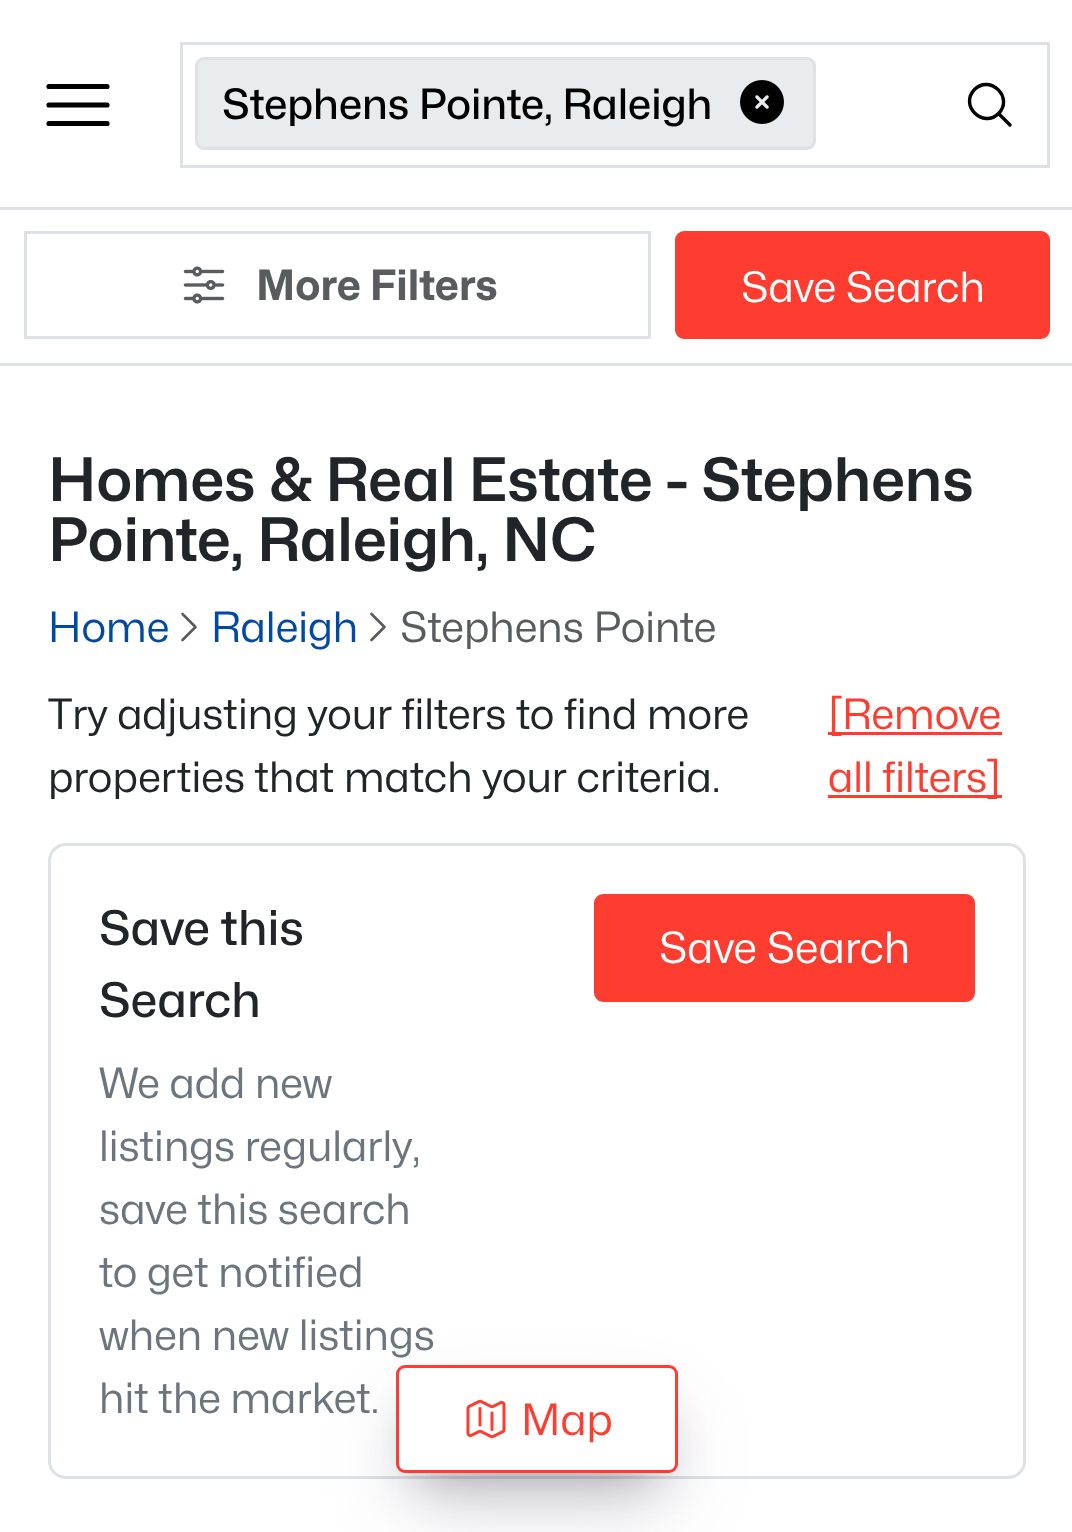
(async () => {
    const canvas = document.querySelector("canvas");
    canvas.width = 1072;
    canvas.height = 1532;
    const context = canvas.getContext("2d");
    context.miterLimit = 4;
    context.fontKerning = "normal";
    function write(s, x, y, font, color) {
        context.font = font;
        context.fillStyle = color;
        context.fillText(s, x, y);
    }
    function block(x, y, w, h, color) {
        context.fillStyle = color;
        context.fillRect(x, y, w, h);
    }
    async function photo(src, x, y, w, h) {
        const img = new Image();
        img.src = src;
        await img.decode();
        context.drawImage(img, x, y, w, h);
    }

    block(0, 0, 1072, 1532, "rgb(255, 255, 255)");
    block(0, 207, 1072, 3, "rgb(222, 226, 230)");
    context.beginPath();
    context.moveTo(49, 86.5);
    context.lineTo(107, 86.5);
    context.moveTo(49, 105);
    context.lineTo(107, 105);
    context.moveTo(49, 123.5);
    context.lineTo(107, 123.5);
    context.strokeStyle = "rgb(0, 0, 0)";
    context.lineWidth = 5.2;
    context.lineCap = "round";
    context.lineJoin = "round";
    context.stroke();
    context.strokeStyle = "rgb(222, 226, 230)";
    context.lineWidth = 3;
    context.lineJoin = "miter";
    context.strokeRect(181.5, 43.5, 867, 123);
    context.fillStyle = "rgb(233, 236, 239)";
    context.beginPath();
    context.roundRect(196.5, 58.5, 618, 90, 7.5);
    context.fill();
    context.stroke();
    write("Stephens Pointe, Raleigh", 222, 119, "500 42px Mona Sans", "rgb(0, 0, 0)");
    await photo("media/1.png", 740, 80, 44, 44);
    context.beginPath();
    context.moveTo(1010, 125);
    context.lineTo(998.5, 113.5);
    context.moveTo(998.5, 113.5);
    context.bezierCurveTo(1014, 98, 990.5, 74, 974.5, 89.5);
    context.bezierCurveTo(959, 105.5, 983, 129, 998.5, 113.5);
    context.closePath();
    context.strokeStyle = "rgb(0, 0, 0)";
    context.lineWidth = 3.4;
    context.lineJoin = "round";
    context.stroke();
    block(0, 363, 1072, 3, "rgb(222, 226, 230)");
    context.strokeStyle = "rgb(222, 226, 230)";
    context.lineWidth = 3;
    context.lineJoin = "miter";
    context.strokeRect(25.5, 232.5, 624, 105);
    await photo("media/2.png", 183, 266, 42, 38);
    write("More Filters", 256, 300, "bold 42px Mona Sans", "rgb(89, 92, 95)");
    context.fillStyle = "rgb(254, 60, 48)";
    context.beginPath();
    context.roundRect(676.5, 232.5, 372, 105, 7.5);
    context.fill();
    context.strokeStyle = "rgb(254, 60, 48)";
    context.stroke();
    write("Save Search", 741, 302, "42px Mona Sans", "rgb(255, 255, 255)");
    write("Homes & Real Estate - Stephens", 48, 501, "600 60px Mona Sans", "rgb(33, 37, 41)");
    write("Pointe, Raleigh, NC", 48, 561, "600 60px Mona Sans", "rgb(33, 37, 41)");
    write("Home", 48, 642, "42px Mona Sans", "rgb(0, 73, 167)");
    context.beginPath();
    context.moveTo(182.5, 614);
    context.lineTo(195.5, 627);
    context.lineTo(182.5, 640);
    context.strokeStyle = "rgb(89, 92, 95)";
    context.lineWidth = 2.6;
    context.lineJoin = "round";
    context.stroke();
    write("Raleigh", 211, 642, "42px Mona Sans", "rgb(0, 73, 167)");
    context.beginPath();
    context.moveTo(371.5, 614);
    context.lineTo(384.5, 627);
    context.lineTo(371.5, 640);
    context.stroke();
    write("Stephens Pointe", 400, 642, "42px Mona Sans", "rgb(89, 92, 95)");
    write("Try adjusting your filters to find more", 48, 729, "42px Mona Sans", "rgb(33, 37, 41)");
    block(828, 732, 174, 3, "rgb(254, 60, 48)");
    write("[Remove", 828, 729, "42px Mona Sans", "rgb(254, 60, 48)");
    block(828, 795, 174, 3, "rgb(254, 60, 48)");
    write("all filters]", 828, 792, "42px Mona Sans", "rgb(254, 60, 48)");
    write("properties that match your criteria.", 48, 792, "42px Mona Sans", "rgb(33, 37, 41)");
    context.beginPath();
    context.roundRect(49.5, 844.5, 975, 633, 16.5);
    context.strokeStyle = "rgb(222, 226, 230)";
    context.lineWidth = 3;
    context.lineJoin = "miter";
    context.stroke();
    write("Save this", 99, 945, "500 48px Mona Sans", "rgb(33, 37, 41)");
    write("Search", 99, 1017, "500 48px Mona Sans", "rgb(33, 37, 41)");
    write("We add new", 99, 1098, "42px Mona Sans", "rgb(108, 117, 125)");
    write("listings regularly,", 99, 1161, "42px Mona Sans", "rgb(108, 117, 125)");
    write("save this search", 99, 1224, "42px Mona Sans", "rgb(108, 117, 125)");
    write("to get notified", 99, 1287, "42px Mona Sans", "rgb(108, 117, 125)");
    write("when new listings", 99, 1350, "42px Mona Sans", "rgb(108, 117, 125)");
    write("hit the market.", 99, 1413, "42px Mona Sans", "rgb(108, 117, 125)");
    context.fillStyle = "rgb(254, 60, 48)";
    context.beginPath();
    context.roundRect(595.5, 895.5, 378, 105, 7.5);
    context.fill();
    context.strokeStyle = "rgb(254, 60, 48)";
    context.stroke();
    write("Save Search", 659, 963, "43.25px Mona Sans", "rgb(255, 255, 255)");
    context.fillStyle = "rgba(0, 0, 0, 0.3)";
    context.filter = "blur(24px)";
    context.beginPath();
    context.rect(420, 1413, 234, 60);
    context.fill();
    context.filter = "none";
    context.fillStyle = "rgba(50, 50, 93, 0.25)";
    context.filter = "blur(40.5px)";
    context.beginPath();
    context.rect(411, 1419, 252, 78);
    context.fill();
    context.filter = "none";
    context.fillStyle = "rgb(255, 255, 255)";
    context.beginPath();
    context.roundRect(397.5, 1366.5, 279, 105, 7.5);
    context.fill();
    context.stroke();
    await photo("media/3.png", 466, 1399, 40, 40);
    write("Map", 521, 1435, "43.25px Mona Sans", "rgb(254, 60, 48)");
})();
